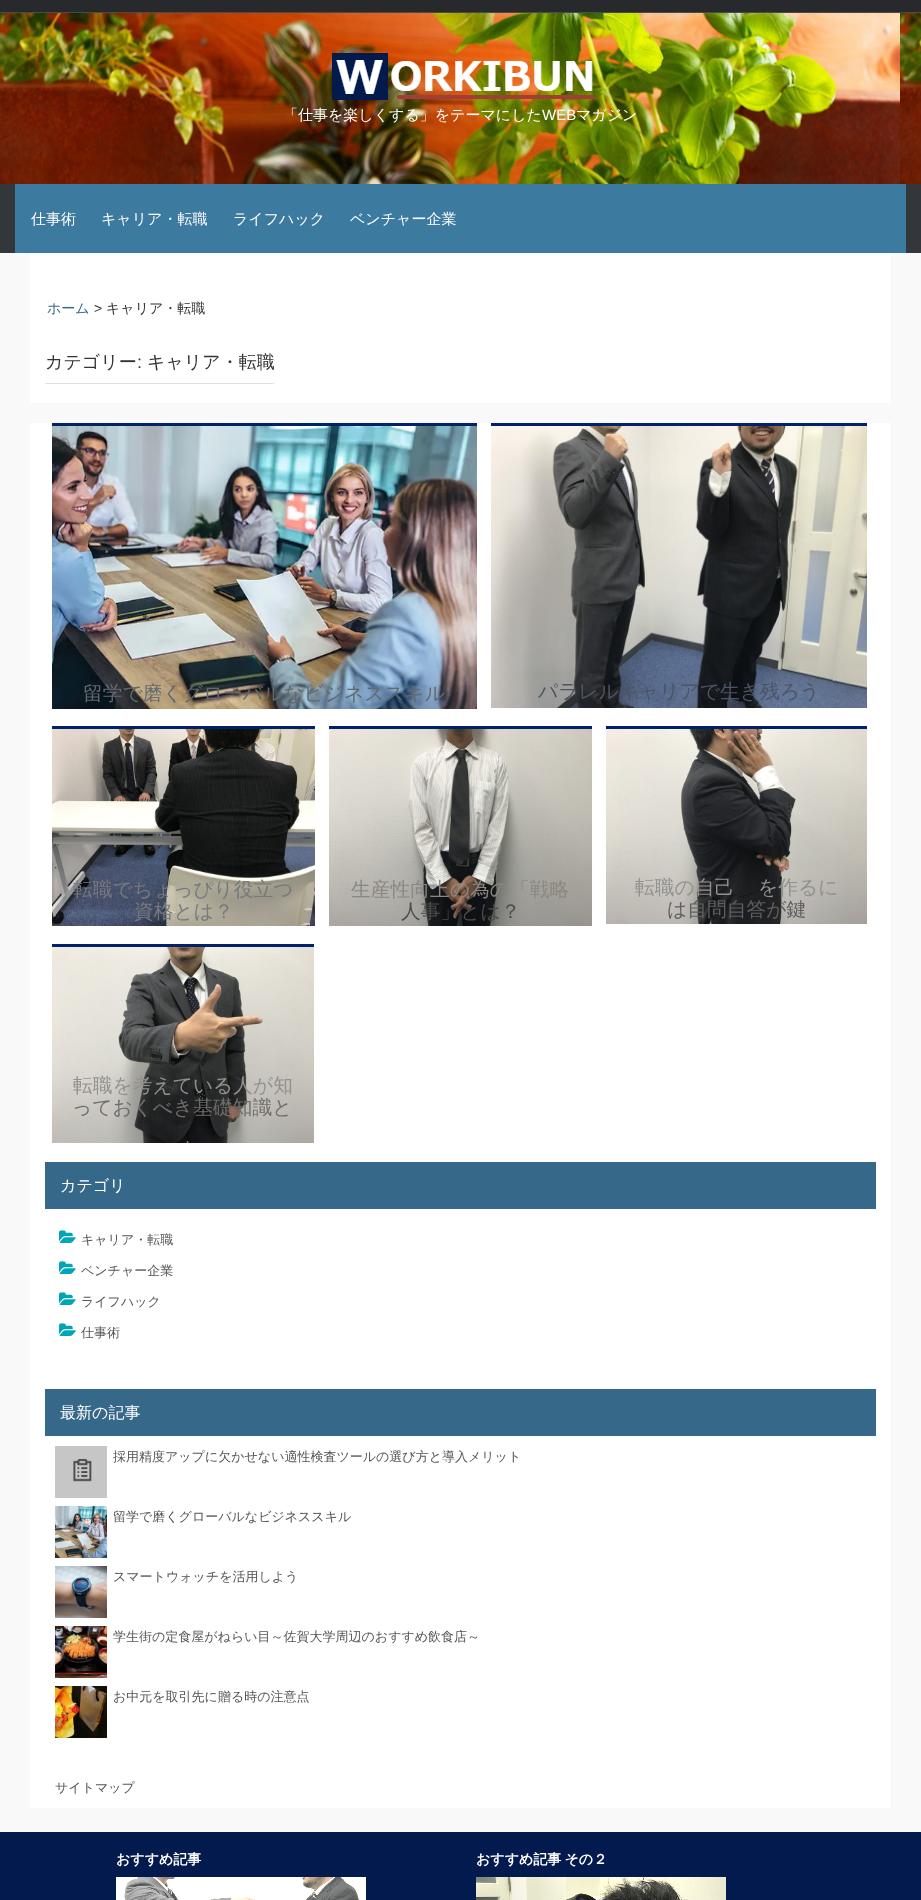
(async () => {
    const canvas = document.querySelector("canvas");
    canvas.width = 921;
    canvas.height = 1900;
    const context = canvas.getContext("2d");
    context.miterLimit = 4;
    context.fontKerning = "normal";
    function write(s, x, y, font, color) {
        context.font = font;
        context.fillStyle = color;
        context.fillText(s, x, y);
    }
    function block(x, y, w, h, color) {
        context.fillStyle = color;
        context.fillRect(x, y, w, h);
    }
    async function photo(src, x, y, w, h) {
        const img = new Image();
        img.src = src;
        await img.decode();
        context.drawImage(img, x, y, w, h);
    }

    block(0, 0, 921, 1900, "rgb(249, 249, 249)");
    block(0, 0, 921, 12, "rgb(39, 41, 45)");
    await photo("media/1.png", 0, 13, 921, 171);
    block(0, 12, 921, 1, "rgb(70, 74, 81)");
    await photo("media/2.png", 332, 53, 263, 47);
    write("「仕事を楽しくする」をテーマにした", 283, 120, "500 15px WenQuanYi Zen Hei", "rgb(255, 255, 255)");
    write("WEB", 542, 120, "15px Liberation Sans", "rgb(255, 255, 255)");
    write("マガジン", 576, 120, "500 15px WenQuanYi Zen Hei", "rgb(255, 255, 255)");
    block(15, 184, 891, 69, "rgb(60, 122, 159)");
    block(906, 184, 15, 69, "rgb(51, 54, 59)");
    block(0, 184, 15, 69, "rgb(51, 54, 59)");
    write("仕事術", 31, 224, "500 15px WenQuanYi Zen Hei", "rgb(255, 255, 255)");
    write("キャリア・転職", 101, 224, "500 15px WenQuanYi Zen Hei", "rgb(255, 255, 255)");
    write("ライフハック", 233, 224, "500 15px WenQuanYi Zen Hei", "rgb(255, 255, 255)");
    write("ベンチャー企業", 350, 224, "500 15px WenQuanYi Zen Hei", "rgb(255, 255, 255)");
    block(30, 253, 861, 150, "rgb(255, 255, 255)");
    write("ホーム", 47, 313, "500 14px WenQuanYi Zen Hei", "rgb(54, 104, 138)");
    write(">", 94, 313, "14px Liberation Sans", "rgb(51, 51, 51)");
    write("キャリア・転職", 106, 313, "500 14px WenQuanYi Zen Hei", "rgb(51, 51, 51)");
    block(45, 383, 229, 1, "rgb(225, 225, 225)");
    write("カテゴリー", 45, 368, "500 18px WenQuanYi Zen Hei", "rgb(51, 51, 51)");
    write(":", 137, 368, "18px Liberation Sans", "rgb(51, 51, 51)");
    write("キャリア・転職", 147, 368, "500 18px WenQuanYi Zen Hei", "rgb(51, 51, 51)");
    block(30, 423, 861, 1385, "rgb(255, 255, 255)");
    block(52, 423, 425, 3, "rgb(1, 34, 105)");
    await photo("media/3.png", 52, 426, 425, 283);
    write("留学で磨くグローバルなビジネススキル", 83, 700, "500 19.75px WenQuanYi Zen Hei", "rgb(98, 106, 110)");
    block(491, 423, 376, 3, "rgb(1, 34, 105)");
    await photo("media/4.png", 491, 426, 376, 282);
    write("パラレルキャリアで生き残ろう", 538, 698, "500 19.75px WenQuanYi Zen Hei", "rgb(75, 85, 102)");
    block(52, 726, 263, 3, "rgb(1, 34, 105)");
    await photo("media/5.png", 52, 729, 263, 197);
    write("転職でちょっぴり役立つ", 73, 896, "500 19.75px WenQuanYi Zen Hei", "rgb(119, 121, 125)");
    write("資格とは？", 134, 918, "500 19.75px WenQuanYi Zen Hei", "rgb(119, 121, 125)");
    block(329, 726, 263, 3, "rgb(1, 34, 105)");
    await photo("media/6.png", 329, 729, 263, 197);
    write("生産性向上の為の「戦略", 351, 896, "500 19.75px WenQuanYi Zen Hei", "rgb(139, 135, 129)");
    write("人事」とは？", 401, 918, "500 19.75px WenQuanYi Zen Hei", "rgb(76, 76, 75)");
    block(606, 726, 261, 3, "rgb(1, 34, 105)");
    await photo("media/7.png", 606, 729, 261, 195);
    write("転職の自己", 635, 894, "500 19.75px WenQuanYi Zen Hei", "rgb(147, 145, 142)");
    write("を作るに", 758, 894, "500 19.75px WenQuanYi Zen Hei", "rgb(147, 145, 142)");
    write("は自問自答が鍵", 667, 916, "500 19.75px WenQuanYi Zen Hei", "rgb(95, 95, 95)");
    block(52, 944, 262, 3, "rgb(1, 34, 105)");
    await photo("media/8.png", 52, 947, 262, 196);
    write("転職を考えている人が知", 73, 1092, "500 19.75px WenQuanYi Zen Hei", "rgb(147, 145, 142)");
    write("っておくべき基礎知識と", 72, 1114, "500 19.75px WenQuanYi Zen Hei", "rgb(111, 109, 106)");
    block(45, 1162, 831, 47, "rgb(54, 104, 138)");
    write("カテゴリ", 60, 1191, "500 16px WenQuanYi Zen Hei", "rgb(255, 255, 255)");
    await photo("media/9.png", 59, 1230, 17, 13);
    write("キャリア・転職", 81, 1244, "500 13px WenQuanYi Zen Hei", "rgb(85, 85, 85)");
    await photo("media/9.png", 59, 1261, 17, 13);
    write("ベンチャー企業", 81, 1275, "500 13px WenQuanYi Zen Hei", "rgb(85, 85, 85)");
    await photo("media/9.png", 59, 1292, 17, 13);
    write("ライフハック", 81, 1306, "500 13px WenQuanYi Zen Hei", "rgb(85, 85, 85)");
    await photo("media/9.png", 59, 1323, 17, 13);
    write("仕事術", 81, 1337, "500 13px WenQuanYi Zen Hei", "rgb(85, 85, 85)");
    block(45, 1389, 831, 47, "rgb(54, 104, 138)");
    write("最新の記事", 60, 1418, "500 16px WenQuanYi Zen Hei", "rgb(255, 255, 255)");
    await photo("media/10.png", 55, 1446, 52, 52);
    write("採用精度アップに欠かせない適性検査ツールの選び方と導入メリット", 113, 1461, "500 13px WenQuanYi Zen Hei", "rgb(85, 85, 85)");
    await photo("media/11.png", 55, 1506, 52, 52);
    write("留学で磨くグローバルなビジネススキル", 113, 1521, "500 13px WenQuanYi Zen Hei", "rgb(85, 85, 85)");
    await photo("media/12.png", 55, 1566, 52, 52);
    write("スマートウォッチを活用しよう", 113, 1581, "500 13px WenQuanYi Zen Hei", "rgb(85, 85, 85)");
    await photo("media/13.png", 55, 1626, 52, 52);
    write("学生街の定食屋がねらい目～佐賀大学周辺のおすすめ飲食店～", 113, 1641, "500 13px WenQuanYi Zen Hei", "rgb(85, 85, 85)");
    await photo("media/14.png", 55, 1686, 52, 52);
    write("お中元を取引先に贈る時の注意点", 113, 1701, "500 13px WenQuanYi Zen Hei", "rgb(85, 85, 85)");
    write("サイトマップ", 55, 1792, "500 13px WenQuanYi Zen Hei", "rgb(85, 85, 85)");
    block(0, 1832, 921, 68, "rgb(3, 26, 78)");
    write("おすすめ記事", 116, 1864, "bold 14px WenQuanYi Zen Hei", "rgb(255, 255, 255)");
    await photo("media/15.png", 116, 1877, 250, 23);
    context.wordSpacing = "-1px";
    write("おすすめ記事 その２", 476, 1864, "bold 14px WenQuanYi Zen Hei", "rgb(255, 255, 255)");
    await photo("media/16.png", 476, 1877, 250, 23);
})();
